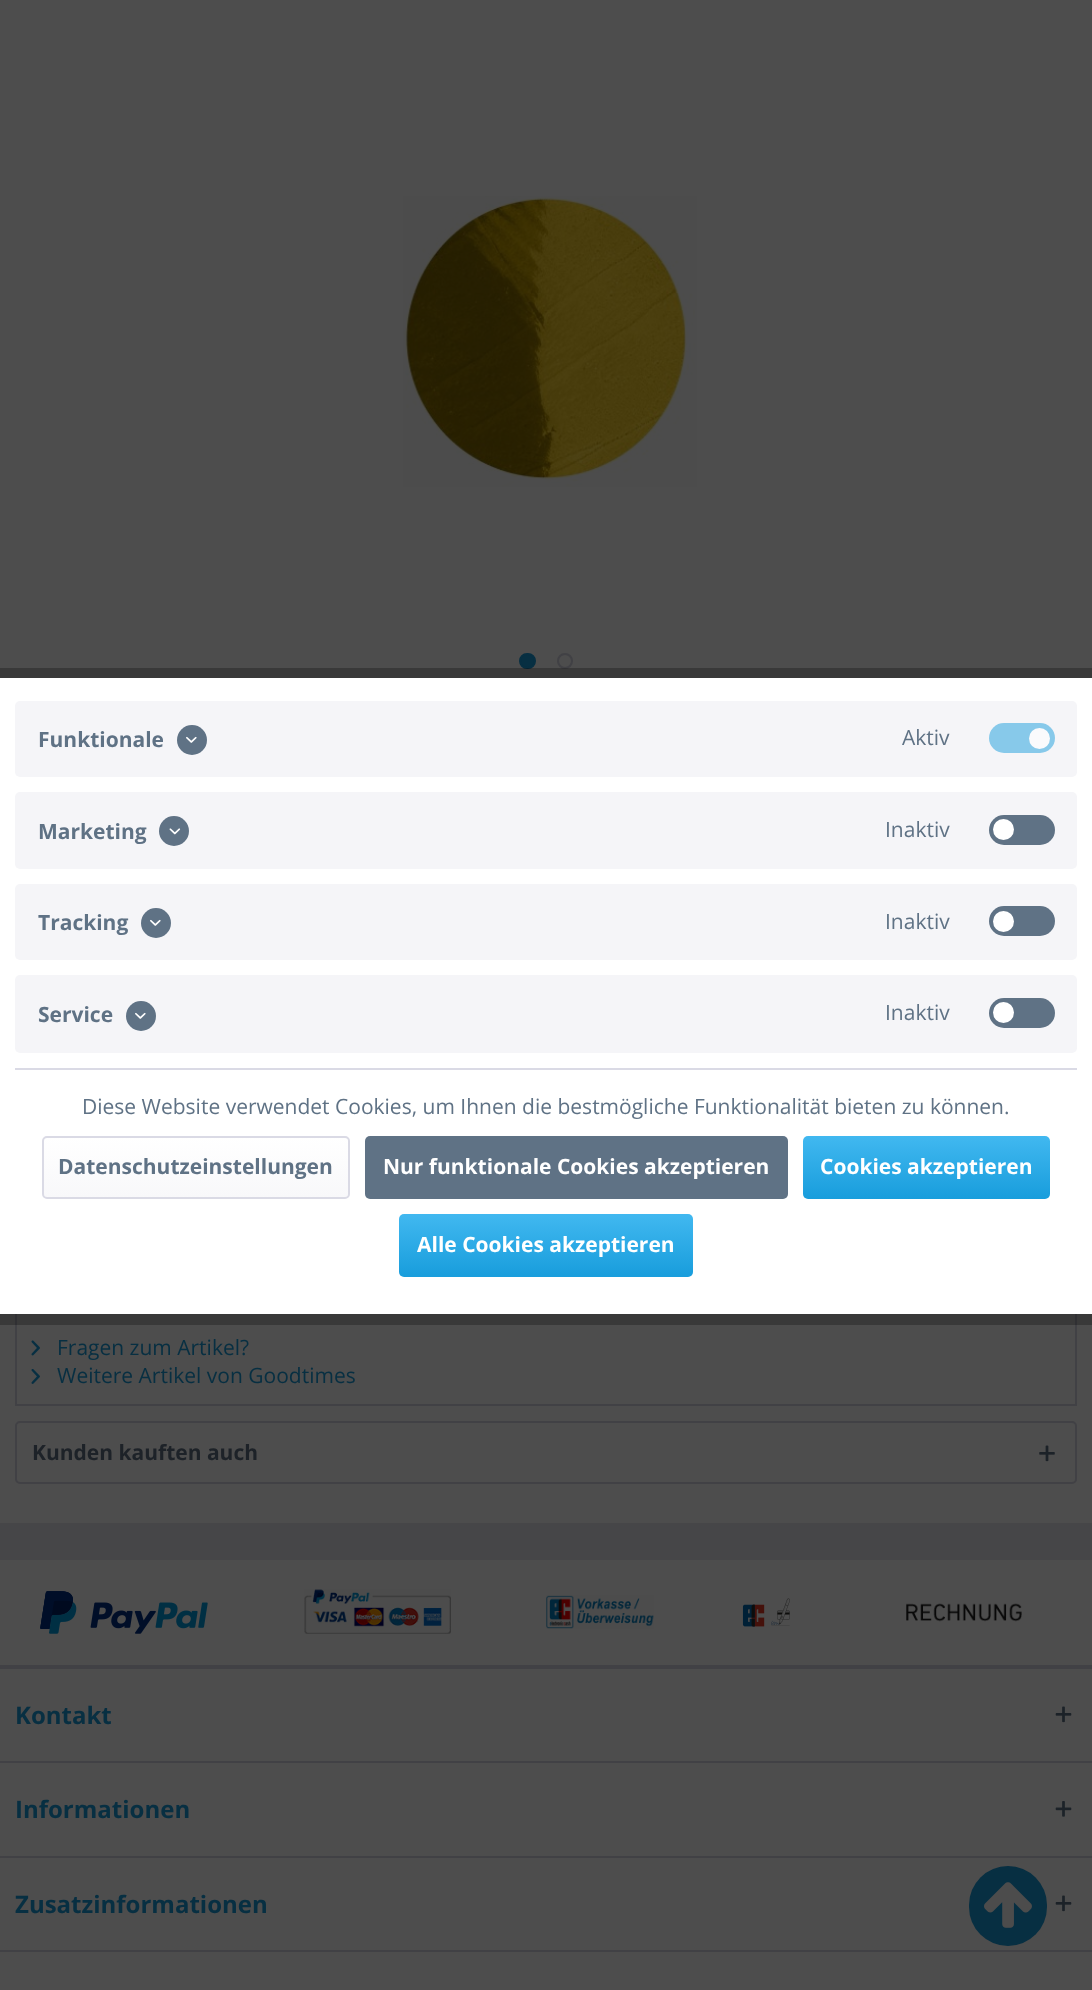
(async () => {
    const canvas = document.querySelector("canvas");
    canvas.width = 1092;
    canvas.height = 1990;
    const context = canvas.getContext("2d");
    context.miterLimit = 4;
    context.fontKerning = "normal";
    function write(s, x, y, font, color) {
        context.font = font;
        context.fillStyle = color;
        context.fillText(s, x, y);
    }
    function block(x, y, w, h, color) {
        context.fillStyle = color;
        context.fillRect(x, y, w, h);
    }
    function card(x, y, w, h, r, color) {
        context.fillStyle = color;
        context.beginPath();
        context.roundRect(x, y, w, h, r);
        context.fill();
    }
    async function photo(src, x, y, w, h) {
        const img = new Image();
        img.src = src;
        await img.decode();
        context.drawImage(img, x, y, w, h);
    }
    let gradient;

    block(0, 0, 1092, 1990, "rgb(70, 70, 72)");
    block(0, 0, 1092, 1523, "rgb(77, 77, 77)");
    context.fillStyle = "rgb(7, 47, 66)";
    context.beginPath();
    context.roundRect(520, 654, 15, 14, 7);
    context.fill();
    context.strokeStyle = "rgb(7, 47, 66)";
    context.lineWidth = 2;
    context.stroke();
    context.beginPath();
    context.arc(565, 661, 7, 0, Math.PI * 2);
    context.strokeStyle = "rgb(65, 65, 69)";
    context.stroke();
    context.strokeRect(16, 1171, 1060, 234);
    context.strokeStyle = "rgba(0, 0, 0, 0.25)";
    context.lineWidth = 11;
    context.strokeRect(-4.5, 673.5, 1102, 646);
    block(0, 678, 1092, 636, "rgb(255, 255, 255)");
    block(15, 1068, 1062, 2, "rgb(218, 218, 229)");
    card(15, 701, 1062, 76, 5, "rgb(245, 245, 248)");
    write("Funktionale", 38, 747, "bold 21px Open Sans", "rgb(95, 114, 133)");
    context.beginPath();
    context.arc(192, 740, 15, 0, Math.PI * 2);
    context.fill();
    await photo("media/1.png", 186, 736, 11, 7);
    write("Aktiv", 902, 745, "21px Open Sans", "rgb(95, 114, 133)");
    card(989, 723, 66, 30, 15, "rgb(135, 201, 234)");
    context.fillStyle = "rgb(250, 250, 252)";
    context.beginPath();
    context.arc(1039.5, 738.5, 10.5, 0, Math.PI * 2);
    context.fill();
    card(15, 792, 1062, 77, 5, "rgb(245, 245, 248)");
    write("Marketing", 38, 839, "bold 21px Open Sans", "rgb(95, 114, 133)");
    context.beginPath();
    context.arc(174, 831, 15, 0, Math.PI * 2);
    context.fill();
    await photo("media/2.png", 169, 828, 12, 7);
    write("Inaktiv", 885, 837, "21px Open Sans", "rgb(95, 114, 133)");
    card(989, 815, 66, 30, 15, "rgb(95, 114, 133)");
    context.fillStyle = "rgb(255, 255, 255)";
    context.beginPath();
    context.arc(1003.5, 829.5, 10.5, 0, Math.PI * 2);
    context.fill();
    card(15, 884, 1062, 76, 5, "rgb(245, 245, 248)");
    write("Tracking", 38, 930, "bold 21px Open Sans", "rgb(95, 114, 133)");
    context.beginPath();
    context.arc(156, 923, 15, 0, Math.PI * 2);
    context.fill();
    await photo("media/1.png", 150, 919, 11, 7);
    write("Inaktiv", 885, 929, "21px Open Sans", "rgb(95, 114, 133)");
    card(989, 906, 66, 30, 15, "rgb(95, 114, 133)");
    context.fillStyle = "rgb(255, 255, 255)";
    context.beginPath();
    context.arc(1003.5, 921.5, 10.5, 0, Math.PI * 2);
    context.fill();
    card(15, 975, 1062, 78, 5, "rgb(245, 245, 248)");
    write("Service", 38, 1022, "bold 21px Open Sans", "rgb(95, 114, 133)");
    context.beginPath();
    context.arc(141, 1016, 15, 0, Math.PI * 2);
    context.fill();
    await photo("media/1.png", 135, 1012, 11, 7);
    write("Inaktiv", 885, 1020, "21px Open Sans", "rgb(95, 114, 133)");
    card(989, 998, 66, 30, 15, "rgb(95, 114, 133)");
    context.fillStyle = "rgb(255, 255, 255)";
    context.beginPath();
    context.arc(1003.5, 1012.5, 10.5, 0, Math.PI * 2);
    context.fill();
    write("Diese Website verwendet Cookies, um Ihnen die bestmögliche Funktionalität bieten zu können.", 82, 1114, "21px Open Sans", "rgb(95, 114, 133)");
    gradient = context.createLinearGradient(196, 1137, 196, 1197);
    gradient.addColorStop(0, "rgb(255, 255, 255)");
    gradient.addColorStop(1, "rgb(248, 248, 250)");
    context.fillStyle = gradient;
    context.beginPath();
    context.roundRect(44, 1137, 304, 60, 3);
    context.fill();
    context.beginPath();
    context.roundRect(43, 1137, 306, 61, 4);
    context.strokeStyle = "rgb(218, 218, 229)";
    context.lineWidth = 2;
    context.stroke();
    write("Datenschutzeinstellungen", 58, 1174, "bold 21px Open Sans", "rgb(95, 114, 133)");
    card(365, 1136, 423, 63, 5, "rgb(95, 114, 133)");
    write("Nur funktionale Cookies akzeptieren", 383, 1174, "bold 21px Open Sans", "rgb(255, 255, 255)");
    gradient = context.createLinearGradient(926, 1136, 926, 1199);
    gradient.addColorStop(0, "rgb(65, 184, 240)");
    gradient.addColorStop(1, "rgb(24, 157, 220)");
    context.fillStyle = gradient;
    context.beginPath();
    context.roundRect(803, 1136, 247, 63, 5);
    context.fill();
    write("Cookies akzeptieren", 820, 1174, "bold 21px Open Sans", "rgb(255, 255, 255)");
    gradient = context.createLinearGradient(546, 1214, 546, 1277);
    gradient.addColorStop(0, "rgb(65, 184, 240)");
    gradient.addColorStop(1, "rgb(24, 157, 220)");
    context.fillStyle = gradient;
    context.beginPath();
    context.roundRect(399, 1214, 294, 63, 5);
    context.fill();
    write("Alle Cookies akzeptieren", 417, 1252, "bold 21px Open Sans", "rgb(255, 255, 255)");
    await photo("media/3.png", 403, 196, 294, 291);
    await photo("media/4.png", 31, 1340, 9, 16);
    write("Fragen zum Artikel?", 57, 1355, "21px Open Sans", "rgb(7, 47, 66)");
    await photo("media/5.png", 31, 1369, 9, 15);
    write("Weitere Artikel von Goodtimes", 57, 1383, "21px Open Sans", "rgb(7, 47, 66)");
    context.beginPath();
    context.roundRect(16, 1422, 1060, 61, 4);
    context.strokeStyle = "rgb(65, 65, 69)";
    context.stroke();
    write("Kunden kauften auch", 32, 1460, "bold 21px Open Sans", "rgb(29, 34, 40)");
    await photo("media/6.png", 1039, 1445, 16, 17);
    block(0, 1560, 1092, 430, "rgb(77, 77, 77)");
    block(0, 1665, 1092, 4, "rgb(65, 65, 69)");
    await photo("media/7.png", 40, 1591, 168, 43);
    await photo("media/8.png", 304, 1589, 147, 45);
    await photo("media/9.png", 546, 1595, 108, 34);
    await photo("media/10.png", 742, 1598, 48, 29);
    await photo("media/11.png", 906, 1603, 116, 19);
    write("Kontakt", 15, 1724, "bold 24px Open Sans", "rgb(7, 47, 66)");
    await photo("media/12.png", 1055, 1706, 17, 17);
    block(0, 1761, 1092, 2, "rgb(65, 65, 69)");
    write("Informationen", 15, 1818, "bold 24px Open Sans", "rgb(7, 47, 66)");
    await photo("media/13.png", 1055, 1801, 17, 16);
    block(0, 1856, 1092, 2, "rgb(65, 65, 69)");
    write("Zusatzinformationen", 15, 1913, "bold 24px Open Sans", "rgb(7, 47, 66)");
    await photo("media/12.png", 1055, 1895, 17, 17);
    block(0, 1950, 1092, 2, "rgb(65, 65, 69)");
    card(969, 1866, 78, 80, 39, "rgb(7, 47, 66)");
    await photo("media/14.png", 984, 1882, 48, 46);
})();
